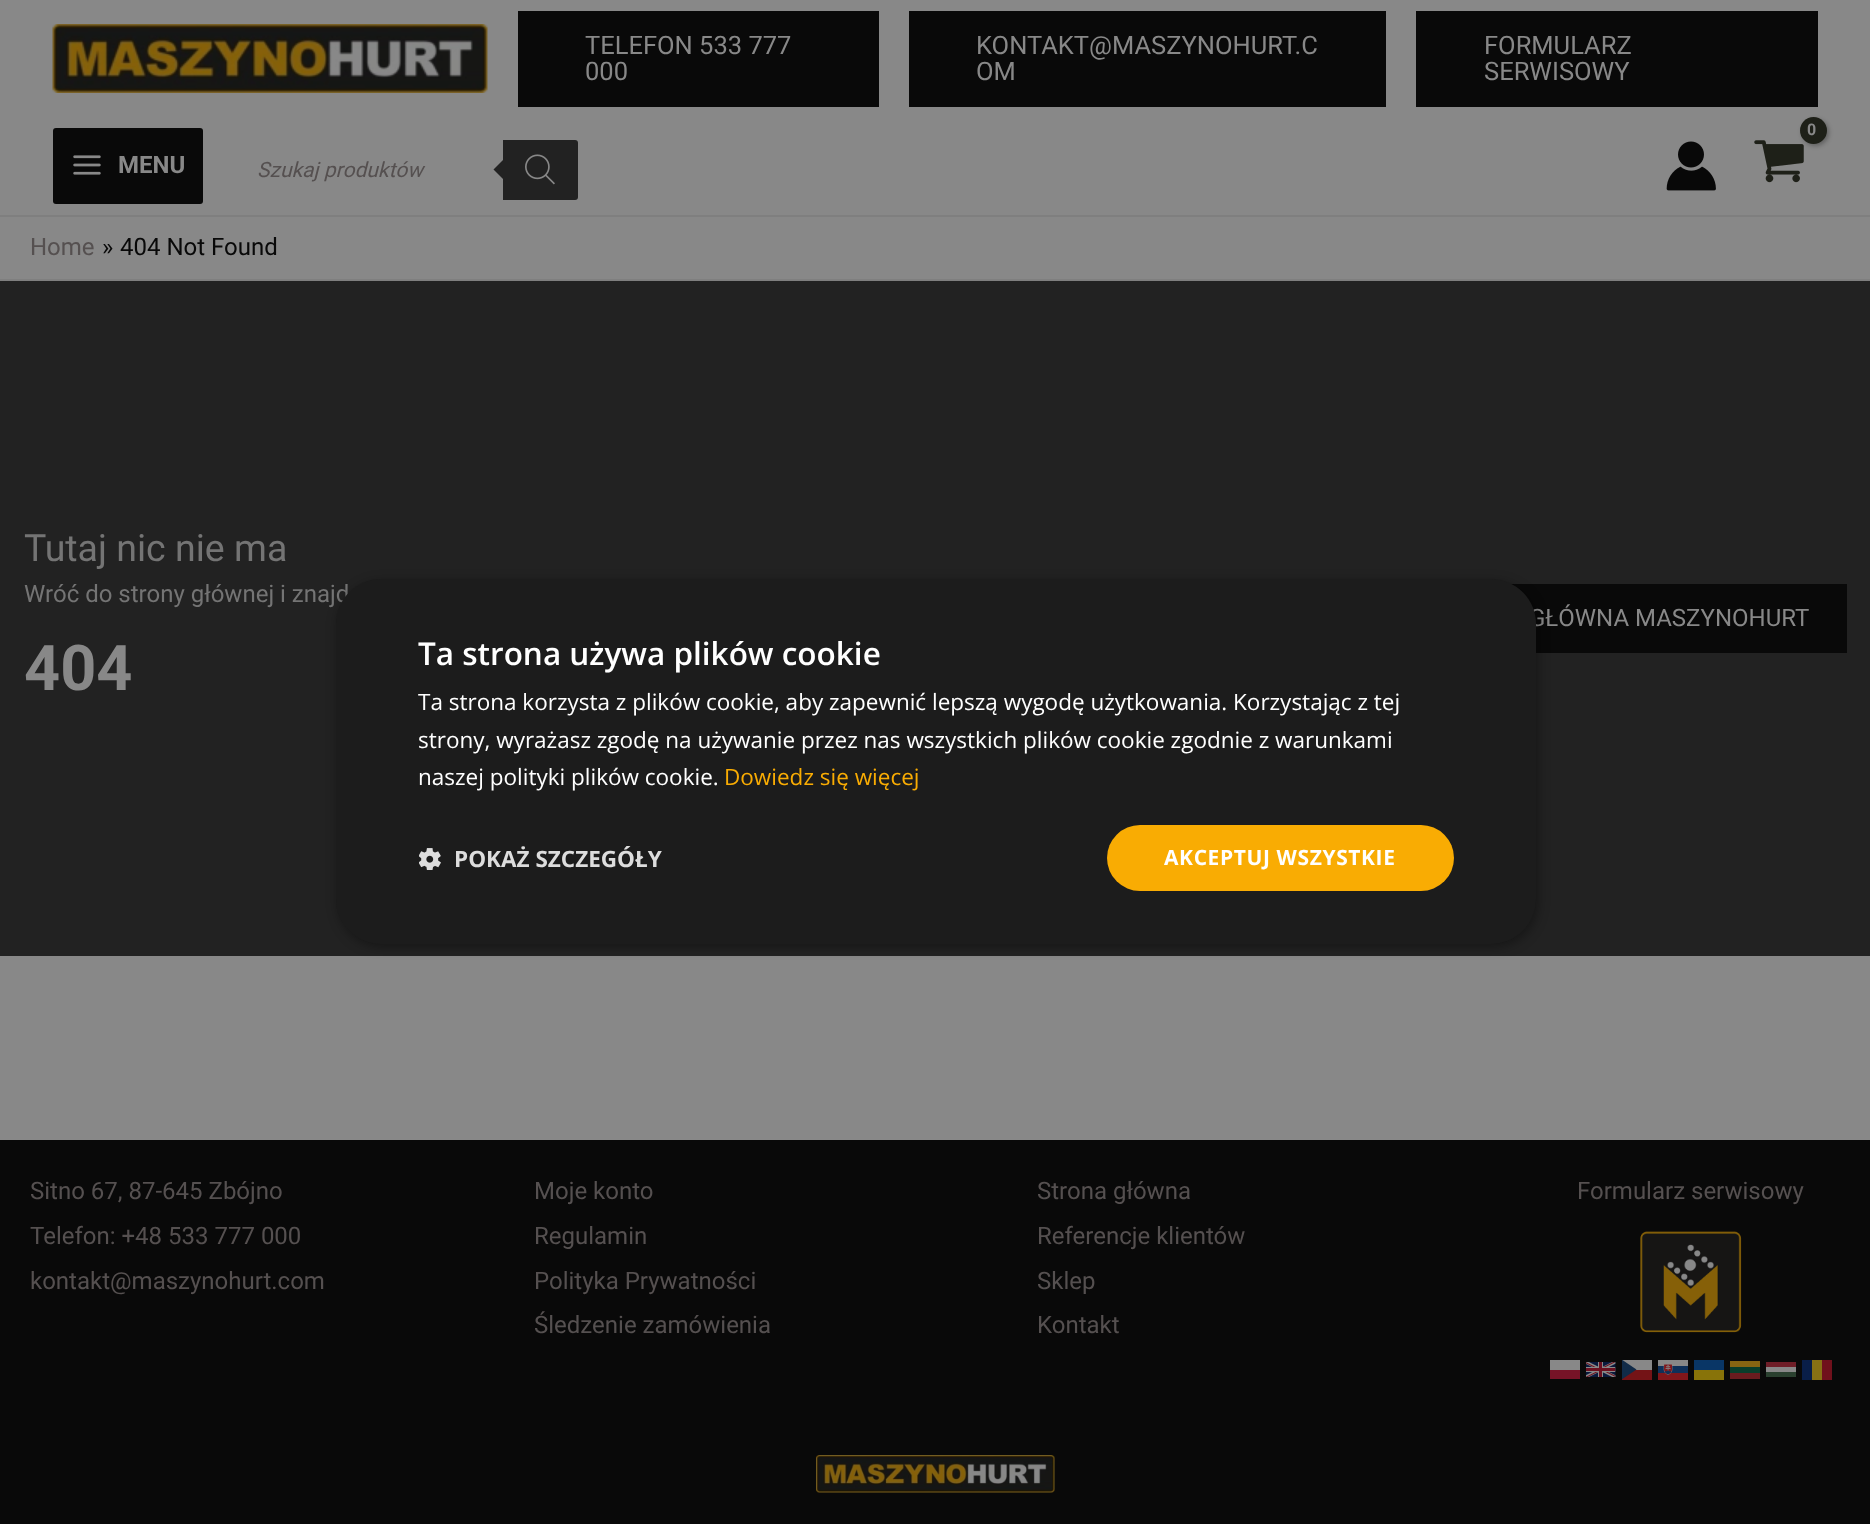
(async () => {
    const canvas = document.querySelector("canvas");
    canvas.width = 1870;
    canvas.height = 1524;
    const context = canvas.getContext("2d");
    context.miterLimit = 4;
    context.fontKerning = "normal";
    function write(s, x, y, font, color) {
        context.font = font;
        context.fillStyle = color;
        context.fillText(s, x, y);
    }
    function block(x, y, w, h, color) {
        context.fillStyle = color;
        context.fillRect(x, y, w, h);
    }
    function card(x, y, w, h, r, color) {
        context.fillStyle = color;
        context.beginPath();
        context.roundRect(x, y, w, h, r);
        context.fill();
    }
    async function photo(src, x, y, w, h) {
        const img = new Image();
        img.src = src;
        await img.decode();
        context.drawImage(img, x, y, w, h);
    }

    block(0, 0, 1870, 1524, "rgb(136, 136, 136)");
    await photo("media/1.png", 52, 24, 436, 69);
    block(518, 11, 361, 96, "rgb(9, 9, 9)");
    write("TELEFON 533 777", 585, 54, "25.5px Roboto", "rgb(136, 136, 136)");
    write("000", 585, 80, "25.5px Roboto", "rgb(136, 136, 136)");
    block(909, 11, 477, 96, "rgb(9, 9, 9)");
    write("KONTAKT@MASZYNOHURT.C", 976, 54, "25.5px Roboto", "rgb(136, 136, 136)");
    write("OM", 976, 80, "25.5px Roboto", "rgb(136, 136, 136)");
    block(1416, 11, 402, 96, "rgb(9, 9, 9)");
    write("FORMULARZ", 1484, 54, "25.5px Roboto", "rgb(136, 136, 136)");
    write("SERWISOWY", 1484, 80, "25.5px Roboto", "rgb(136, 136, 136)");
    block(0, 215, 1870, 2, "rgb(127, 127, 127)");
    await photo("media/2.png", 1754, 140, 50, 43);
    context.fillStyle = "rgba(9, 9, 9, 0.3)";
    context.filter = "blur(2px)";
    context.beginPath();
    context.roundRect(1802, 119, 27, 27, 13.5);
    context.fill();
    context.filter = "none";
    context.fillStyle = "rgb(30, 32, 24)";
    context.beginPath();
    context.arc(1813.5, 130.5, 13.5, 0, Math.PI * 2);
    context.fill();
    context.letterSpacing = "-1px";
    write("0", 1807, 135, "bold 16px Roboto", "rgb(136, 136, 136)");
    await photo("media/3.png", 1666, 141, 50, 50);
    card(53, 128, 150, 76, 3, "rgb(9, 9, 9)");
    await photo("media/4.png", 73, 155, 28, 20);
    context.letterSpacing = "0px";
    write("MENU", 118, 173, "bold 24px Roboto", "rgb(136, 136, 136)");
    write("Szukaj produktów", 257, 177, "italic 21px Roboto", "rgb(85, 80, 80)");
    context.fillStyle = "rgb(34, 34, 34)";
    context.beginPath();
    context.roundRect(503, 140, 75, 60, [0, 3, 3, 0]);
    context.fill();
    context.beginPath();
    context.moveTo(505.5, 157.5);
    context.lineTo(505.5, 181.5);
    context.lineTo(493.5, 169.5);
    context.closePath();
    context.fill();
    await photo("media/5.png", 525, 154, 30, 31);
    block(0, 279, 1870, 2, "rgb(127, 127, 127)");
    write("Home", 30, 255, "24px Roboto", "rgb(85, 80, 80)");
    write("»", 102, 255, "24px Roboto", "rgb(9, 9, 9)");
    write("404 Not Found", 120, 255, "24px Roboto", "rgb(9, 9, 9)");
    block(0, 281, 1870, 675, "rgb(34, 34, 34)");
    write("Tutaj nic nie ma", 24, 561, "37.5px Roboto", "rgb(116, 116, 116)");
    write("Wróć do strony głównej i znajd", 24, 602, "24px Roboto", "rgb(116, 116, 116)");
    write("404", 24, 690, "bold 63px Roboto", "rgb(136, 136, 136)");
    block(1511, 584, 336, 69, "rgb(9, 9, 9)");
    write("GŁÓWNA MASZYNOHURT", 1529, 626, "24px Roboto", "rgb(136, 136, 136)");
    block(0, 1140, 1870, 384, "rgb(9, 9, 9)");
    write("Sitno 67, 87-645 Zbójno", 30, 1199, "24px Roboto", "rgb(85, 80, 80)");
    write("Telefon: +48 533 777 000", 30, 1244, "24px Roboto", "rgb(85, 80, 80)");
    write("kontakt@maszynohurt.com", 30, 1289, "24px Roboto", "rgb(85, 80, 80)");
    write("Moje konto", 534, 1199, "24px Roboto", "rgb(85, 80, 80)");
    write("Regulamin", 534, 1244, "24px Roboto", "rgb(85, 80, 80)");
    write("Polityka Prywatności", 534, 1289, "24px Roboto", "rgb(85, 80, 80)");
    write("Śledzenie zamówienia", 534, 1333, "24px Roboto", "rgb(85, 80, 80)");
    write("Strona główna", 1037, 1199, "24px Roboto", "rgb(85, 80, 80)");
    write("Referencje klientów", 1037, 1244, "24px Roboto", "rgb(85, 80, 80)");
    write("Sklep", 1037, 1289, "24px Roboto", "rgb(85, 80, 80)");
    write("Kontakt", 1037, 1333, "24px Roboto", "rgb(85, 80, 80)");
    write("Formularz serwisowy", 1577, 1199, "24px Roboto", "rgb(85, 80, 80)");
    await photo("media/6.png", 1640, 1231, 102, 102);
    block(1550, 1360, 30, 10, "rgb(136, 136, 136)");
    block(1550, 1370, 30, 9, "rgb(119, 19, 39)");
    await photo("media/7.png", 1586, 1362, 30, 15);
    block(1622, 1370, 30, 10, "rgb(116, 19, 22)");
    block(1622, 1360, 30, 10, "rgb(136, 136, 136)");
    context.save();
    context.beginPath();
    context.rect(1622, 1355, 30, 30);
    context.clip();
    context.fillStyle = "rgb(17, 43, 72)";
    context.beginPath();
    context.moveTo(1636.5, 1369.5);
    context.lineTo(1621.5, 1359.5);
    context.lineTo(1621.5, 1379.5);
    context.closePath();
    context.fill();
    context.restore();
    await photo("media/8.png", 1658, 1360, 30, 20);
    block(1694, 1360, 30, 10, "rgb(9, 54, 102)");
    block(1694, 1370, 30, 10, "rgb(136, 115, 9)");
    block(1730, 1373, 30, 6, "rgb(105, 28, 31)");
    block(1730, 1367, 30, 6, "rgb(9, 62, 43)");
    block(1730, 1361, 30, 6, "rgb(135, 101, 18)");
    block(1766, 1372, 30, 5, "rgb(42, 64, 47)");
    block(1766, 1367, 30, 5, "rgb(136, 136, 136)");
    block(1766, 1362, 30, 5, "rgb(111, 30, 40)");
    block(1802, 1360, 10, 20, "rgb(9, 30, 72)");
    block(1812, 1360, 10, 20, "rgb(135, 113, 20)");
    block(1822, 1360, 10, 20, "rgb(112, 17, 28)");
    await photo("media/9.png", 816, 1455, 239, 38);
    context.fillStyle = "rgba(0, 0, 0, 0.35)";
    context.filter = "blur(6px)";
    context.beginPath();
    context.roundRect(338, 582, 1200, 365, 45);
    context.fill();
    context.filter = "none";
    card(336, 579, 1200, 365, 45, "rgb(28, 28, 28)");
    write("Ta strona używa plików cookie", 418, 665, "600 31.5px Open Sans", "rgb(255, 255, 255)");
    write("Ta strona korzysta z plików cookie, aby zapewnić lepszą wygodę użytkowania. Korzystając z tej", 418, 710, "22.5px Open Sans", "rgb(255, 255, 255)");
    write("strony, wyrażasz zgodę na używanie przez nas wszystkich plików cookie zgodnie z warunkami", 418, 748, "22.5px Open Sans", "rgb(255, 255, 255)");
    write("naszej polityki plików cookie.", 418, 785, "22.5px Open Sans", "rgb(255, 255, 255)");
    write("Dowiedz się więcej", 724, 785, "22.5px Open Sans", "rgb(249, 172, 3)");
    await photo("media/10.png", 419, 848, 22, 22);
    write("POKAŻ SZCZEGÓŁY", 454, 867, "bold 22.5px Open Sans", "rgb(221, 221, 221)");
    card(1107, 825, 347, 66, 33, "rgb(249, 172, 3)");
    context.letterSpacing = "0.6px";
    write("AKCEPTUJ WSZYSTKIE", 1164, 865, "bold 21px Open Sans", "rgb(255, 255, 255)");
})();
